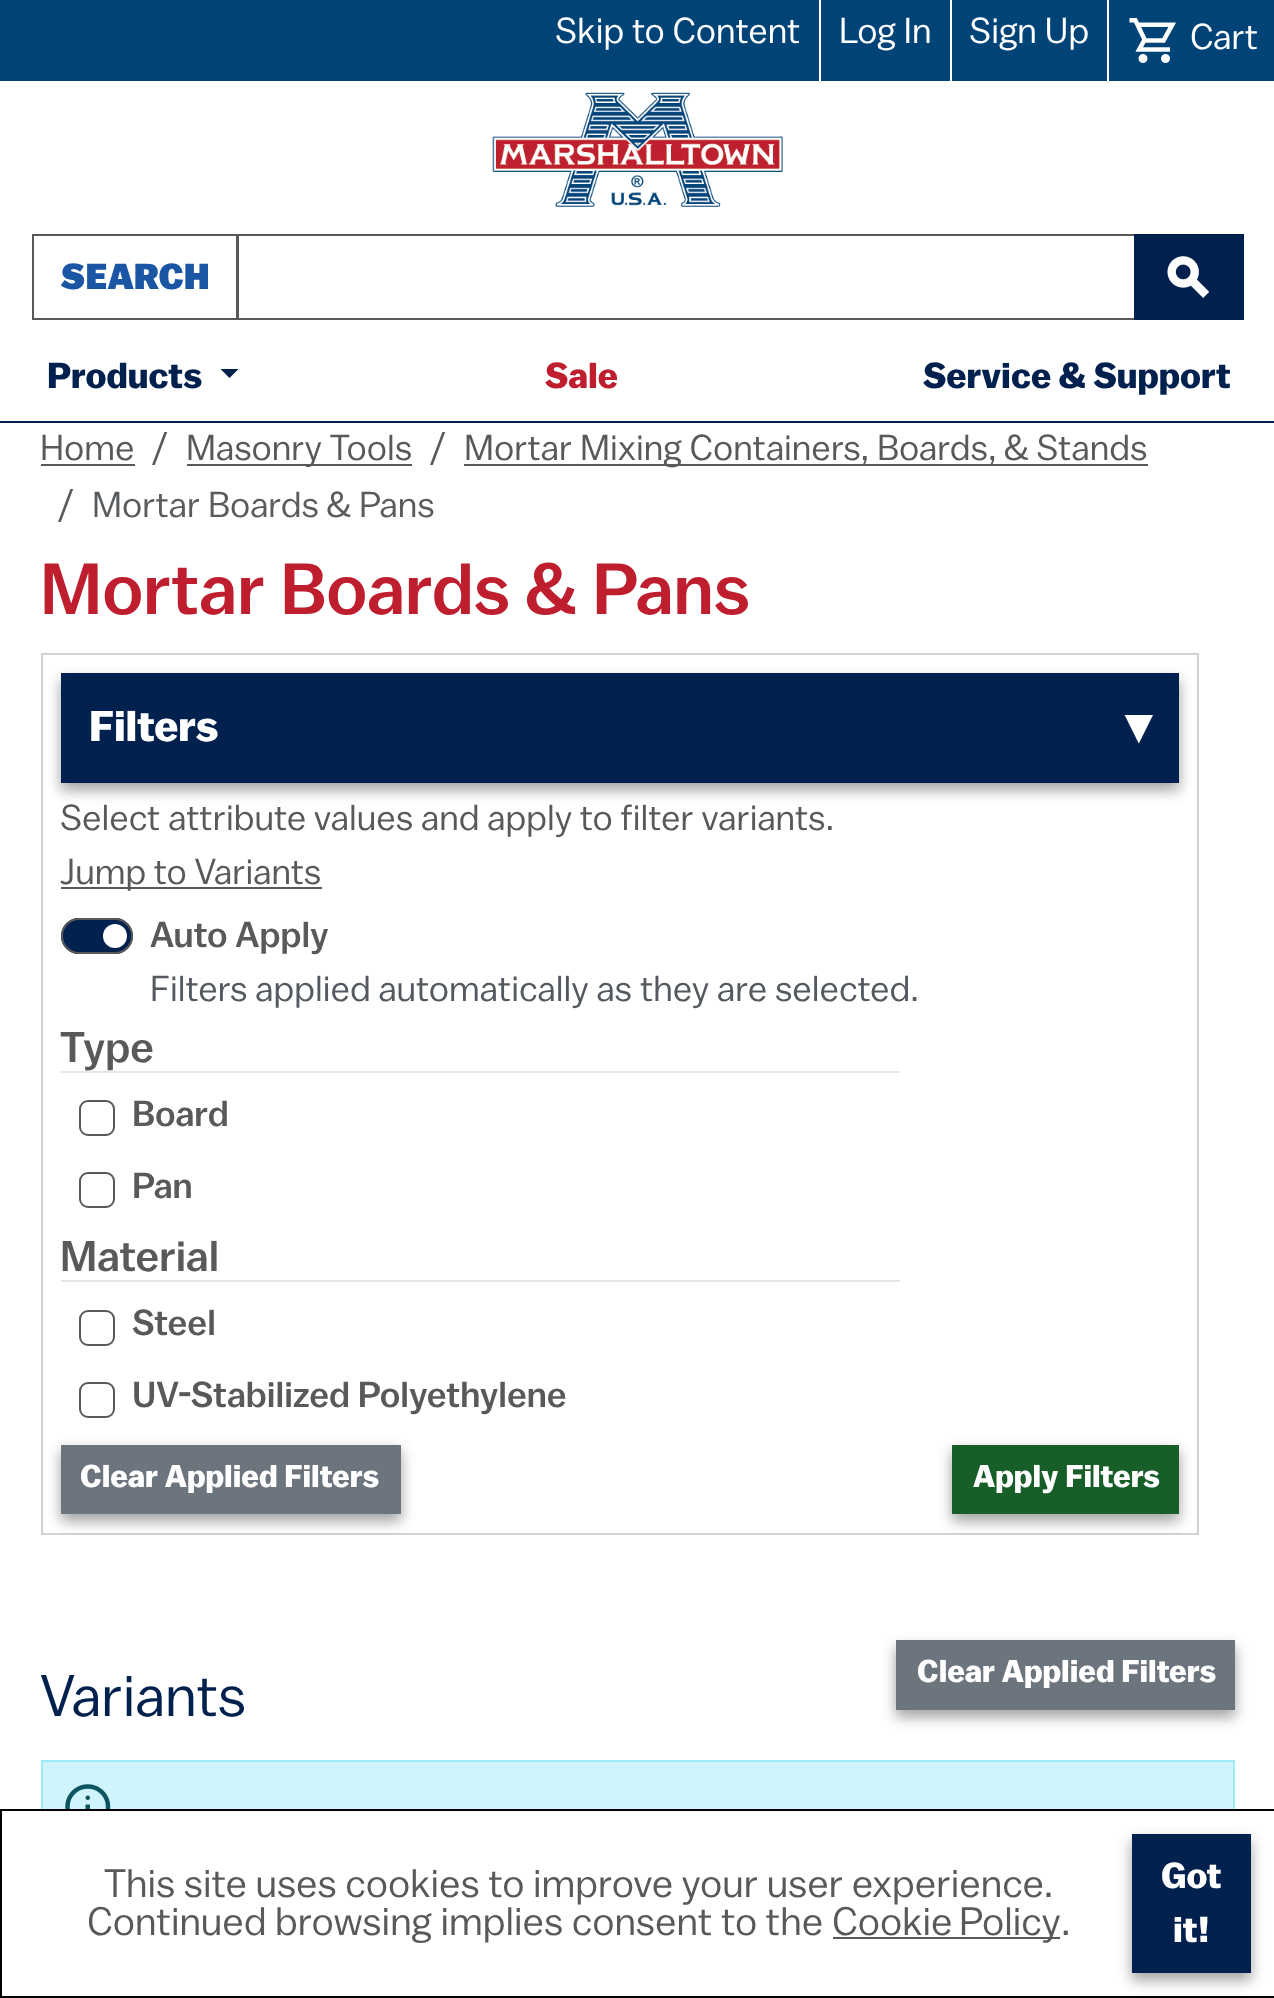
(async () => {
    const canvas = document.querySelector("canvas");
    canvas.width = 1274;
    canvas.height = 1998;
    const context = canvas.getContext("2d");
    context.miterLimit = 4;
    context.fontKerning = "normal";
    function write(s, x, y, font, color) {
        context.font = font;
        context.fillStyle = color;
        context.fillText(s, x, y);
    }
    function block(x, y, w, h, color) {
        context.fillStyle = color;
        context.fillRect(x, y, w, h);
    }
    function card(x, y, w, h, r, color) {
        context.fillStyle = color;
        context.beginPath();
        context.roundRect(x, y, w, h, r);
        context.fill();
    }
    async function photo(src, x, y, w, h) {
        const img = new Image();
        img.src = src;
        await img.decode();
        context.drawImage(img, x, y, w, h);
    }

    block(0, 0, 1274, 1998, "rgb(0, 67, 119)");
    write("Skip to Content", 555, 43, "36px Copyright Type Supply", "rgb(255, 255, 255)");
    block(819, 0, 2, 81, "rgb(255, 255, 255)");
    write("Log In", 839, 43, "36px Copyright Type Supply", "rgb(255, 255, 255)");
    block(950, 0, 2, 81, "rgb(255, 255, 255)");
    write("Sign Up", 969, 43, "36px Copyright Type Supply", "rgb(255, 255, 255)");
    block(1107, 0, 2, 81, "rgb(255, 255, 255)");
    await photo("media/1.png", 1129, 18, 47, 45);
    write("Cart", 1190, 49, "36px Copyright Type Supply", "rgb(255, 255, 255)");
    block(0, 81, 1274, 340, "rgb(255, 255, 255)");
    block(0, 421, 1274, 2, "rgb(0, 32, 78)");
    await photo("media/2.png", 492, 92, 291, 115);
    context.strokeStyle = "rgb(89, 89, 89)";
    context.lineWidth = 2;
    context.strokeRect(33, 235, 205, 84);
    write("SEARCH", 61, 289, "bold 36px Copyright Type Supply", "rgb(26, 86, 163)");
    context.strokeRect(237, 235, 898, 84);
    block(1134, 234, 110, 86, "rgb(0, 32, 78)");
    await photo("media/3.png", 1167, 256, 43, 42);
    write("Products", 47, 388, "600 36px Copyright Type Supply", "rgb(0, 32, 78)");
    context.beginPath();
    context.moveTo(220.5, 369);
    context.lineTo(238.5, 369);
    context.lineTo(229.5, 378);
    context.closePath();
    context.fill();
    write("Sale", 545, 388, "600 36px Copyright Type Supply", "rgb(190, 30, 45)");
    write("Service & Support", 923, 388, "600 36px Copyright Type Supply", "rgb(0, 32, 78)");
    block(0, 423, 1274, 1386, "rgb(255, 255, 255)");
    write("Home", 40, 460, "36px Copyright Type Supply", "rgb(89, 89, 89)");
    block(41, 464, 94, 2, "rgb(89, 89, 89)");
    write("/", 152, 460, "36px Copyright Type Supply", "rgb(89, 92, 95)");
    block(187, 464, 225, 2, "rgb(89, 89, 89)");
    write("Masonry Tools", 186, 460, "36px Copyright Type Supply", "rgb(89, 89, 89)");
    write("/", 430, 460, "36px Copyright Type Supply", "rgb(89, 92, 95)");
    block(464, 464, 684, 2, "rgb(89, 89, 89)");
    write("Mortar Mixing Containers, Boards, & Stands", 464, 460, "36px Copyright Type Supply", "rgb(89, 89, 89)");
    write("/", 58, 517, "36px Copyright Type Supply", "rgb(89, 92, 95)");
    write("Mortar Boards & Pans", 92, 517, "36px Copyright Type Supply", "rgb(89, 92, 95)");
    write("Mortar Boards & Pans", 40, 614, "500 72px Copyright Type Supply", "rgb(190, 30, 45)");
    context.strokeStyle = "rgb(210, 210, 210)";
    context.strokeRect(42, 654, 1156, 880);
    context.fillStyle = "rgba(0, 0, 0, 0.23)";
    context.filter = "blur(7px)";
    context.beginPath();
    context.rect(61, 680, 1118, 110);
    context.fill();
    context.filter = "none";
    context.fillStyle = "rgba(0, 0, 0, 0.16)";
    context.filter = "blur(7px)";
    context.beginPath();
    context.rect(61, 680, 1118, 110);
    context.fill();
    context.filter = "none";
    block(61, 673, 1118, 110, "rgb(0, 32, 78)");
    write("Filters", 89, 741, "600 43px Copyright Type Supply", "rgb(255, 255, 255)");
    write("▾", 1125, 743, "bold 52px DejaVu Sans", "rgb(255, 255, 255)");
    write("Select attribute values and apply to filter variants.", 60, 830, "36px Copyright Type Supply", "rgb(89, 89, 89)");
    block(61, 887, 261, 2, "rgb(89, 89, 89)");
    write("Jump to Variants", 60, 884, "36px Copyright Type Supply", "rgb(89, 89, 89)");
    card(61, 918, 72, 36, 18, "rgb(0, 32, 78)");
    context.fillStyle = "rgb(255, 255, 255)";
    context.beginPath();
    context.arc(115, 936, 12, 0, Math.PI * 2);
    context.fill();
    context.beginPath();
    context.roundRect(62, 919, 70, 34, 17);
    context.strokeStyle = "rgb(89, 89, 89)";
    context.stroke();
    write("Auto Apply", 150, 947, "500 36px Copyright Type Supply", "rgb(89, 89, 89)");
    write("Filters applied automatically as they are selected.", 150, 1001, "36px Copyright Type Supply", "rgb(83, 89, 95)");
    block(61, 1071, 839, 2, "rgb(230, 230, 230)");
    write("Type", 60, 1062, "500 43px Copyright Type Supply", "rgb(89, 89, 89)");
    context.beginPath();
    context.roundRect(80, 1101, 34, 34, 8);
    context.stroke();
    write("Board", 132, 1126, "500 36px Copyright Type Supply", "rgb(89, 89, 89)");
    context.beginPath();
    context.roundRect(80, 1173, 34, 34, 8);
    context.stroke();
    write("Pan", 132, 1198, "500 36px Copyright Type Supply", "rgb(89, 89, 89)");
    block(61, 1280, 839, 2, "rgb(230, 230, 230)");
    write("Material", 60, 1271, "500 43px Copyright Type Supply", "rgb(89, 89, 89)");
    context.beginPath();
    context.roundRect(80, 1311, 34, 34, 8);
    context.stroke();
    write("Steel", 132, 1335, "500 36px Copyright Type Supply", "rgb(89, 89, 89)");
    context.beginPath();
    context.roundRect(80, 1383, 34, 34, 8);
    context.stroke();
    write("UV-Stabilized Polyethylene", 132, 1407, "500 36px Copyright Type Supply", "rgb(89, 89, 89)");
    context.fillStyle = "rgba(0, 0, 0, 0.23)";
    context.filter = "blur(7px)";
    context.beginPath();
    context.rect(61, 1451, 340, 70);
    context.fill();
    context.filter = "none";
    context.fillStyle = "rgba(0, 0, 0, 0.16)";
    context.filter = "blur(7px)";
    context.beginPath();
    context.rect(61, 1451, 340, 70);
    context.fill();
    context.filter = "none";
    block(61, 1445, 340, 69, "rgb(108, 117, 125)");
    write("Clear Applied Filters", 80, 1487, "600 31.5px Copyright Type Supply", "rgb(255, 255, 255)");
    context.fillStyle = "rgba(0, 0, 0, 0.23)";
    context.filter = "blur(7px)";
    context.beginPath();
    context.rect(952, 1451, 227, 70);
    context.fill();
    context.filter = "none";
    context.fillStyle = "rgba(0, 0, 0, 0.16)";
    context.filter = "blur(7px)";
    context.beginPath();
    context.rect(952, 1451, 227, 70);
    context.fill();
    context.filter = "none";
    block(952, 1445, 227, 69, "rgb(23, 94, 40)");
    write("Apply Filters", 973, 1487, "600 31.5px Copyright Type Supply", "rgb(255, 255, 255)");
    write("Variants", 40, 1716, "58.5px Copyright Type Supply", "rgb(0, 32, 78)");
    context.fillStyle = "rgba(0, 0, 0, 0.23)";
    context.filter = "blur(7px)";
    context.beginPath();
    context.rect(896, 1647, 339, 70);
    context.fill();
    context.filter = "none";
    context.fillStyle = "rgba(0, 0, 0, 0.16)";
    context.filter = "blur(7px)";
    context.beginPath();
    context.rect(896, 1647, 339, 70);
    context.fill();
    context.filter = "none";
    block(896, 1640, 339, 70, "rgb(108, 117, 125)");
    write("Clear Applied Filters", 917, 1682, "600 31.5px Copyright Type Supply", "rgb(255, 255, 255)");
    block(43, 1762, 1190, 47, "rgb(207, 244, 252)");
    context.strokeStyle = "rgb(158, 234, 249)";
    context.strokeRect(42, 1761, 1192, 92);
    await photo("media/4.png", 65, 1784, 46, 25);
    context.fillStyle = "rgb(255, 255, 255)";
    context.beginPath();
    context.rect(1, 1810, 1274, 187);
    context.fill();
    context.strokeStyle = "rgb(0, 0, 0)";
    context.stroke();
    write("This site uses cookies to improve your user experience.", 104, 1897, "39.6px Copyright Type Supply", "rgb(89, 89, 89)");
    write("Continued browsing implies consent to the", 87, 1935, "39.6px Copyright Type Supply", "rgb(89, 89, 89)");
    block(833, 1937, 227, 2, "rgb(89, 89, 89)");
    context.wordSpacing = "-2px";
    write("Cookie Policy", 832, 1935, "39.6px Copyright Type Supply", "rgb(89, 89, 89)");
    context.wordSpacing = "0px";
    write(".", 1061, 1935, "39.6px Copyright Type Supply", "rgb(89, 89, 89)");
    context.fillStyle = "rgba(0, 0, 0, 0.23)";
    context.filter = "blur(7px)";
    context.beginPath();
    context.rect(1132, 1841, 119, 139);
    context.fill();
    context.filter = "none";
    context.fillStyle = "rgba(0, 0, 0, 0.16)";
    context.filter = "blur(7px)";
    context.beginPath();
    context.rect(1132, 1841, 119, 139);
    context.fill();
    context.filter = "none";
    block(1132, 1834, 119, 139, "rgb(0, 32, 78)");
    write("Got", 1161, 1888, "600 36px Copyright Type Supply", "rgb(255, 255, 255)");
    write("it!", 1173, 1942, "600 36px Copyright Type Supply", "rgb(255, 255, 255)");
})();
